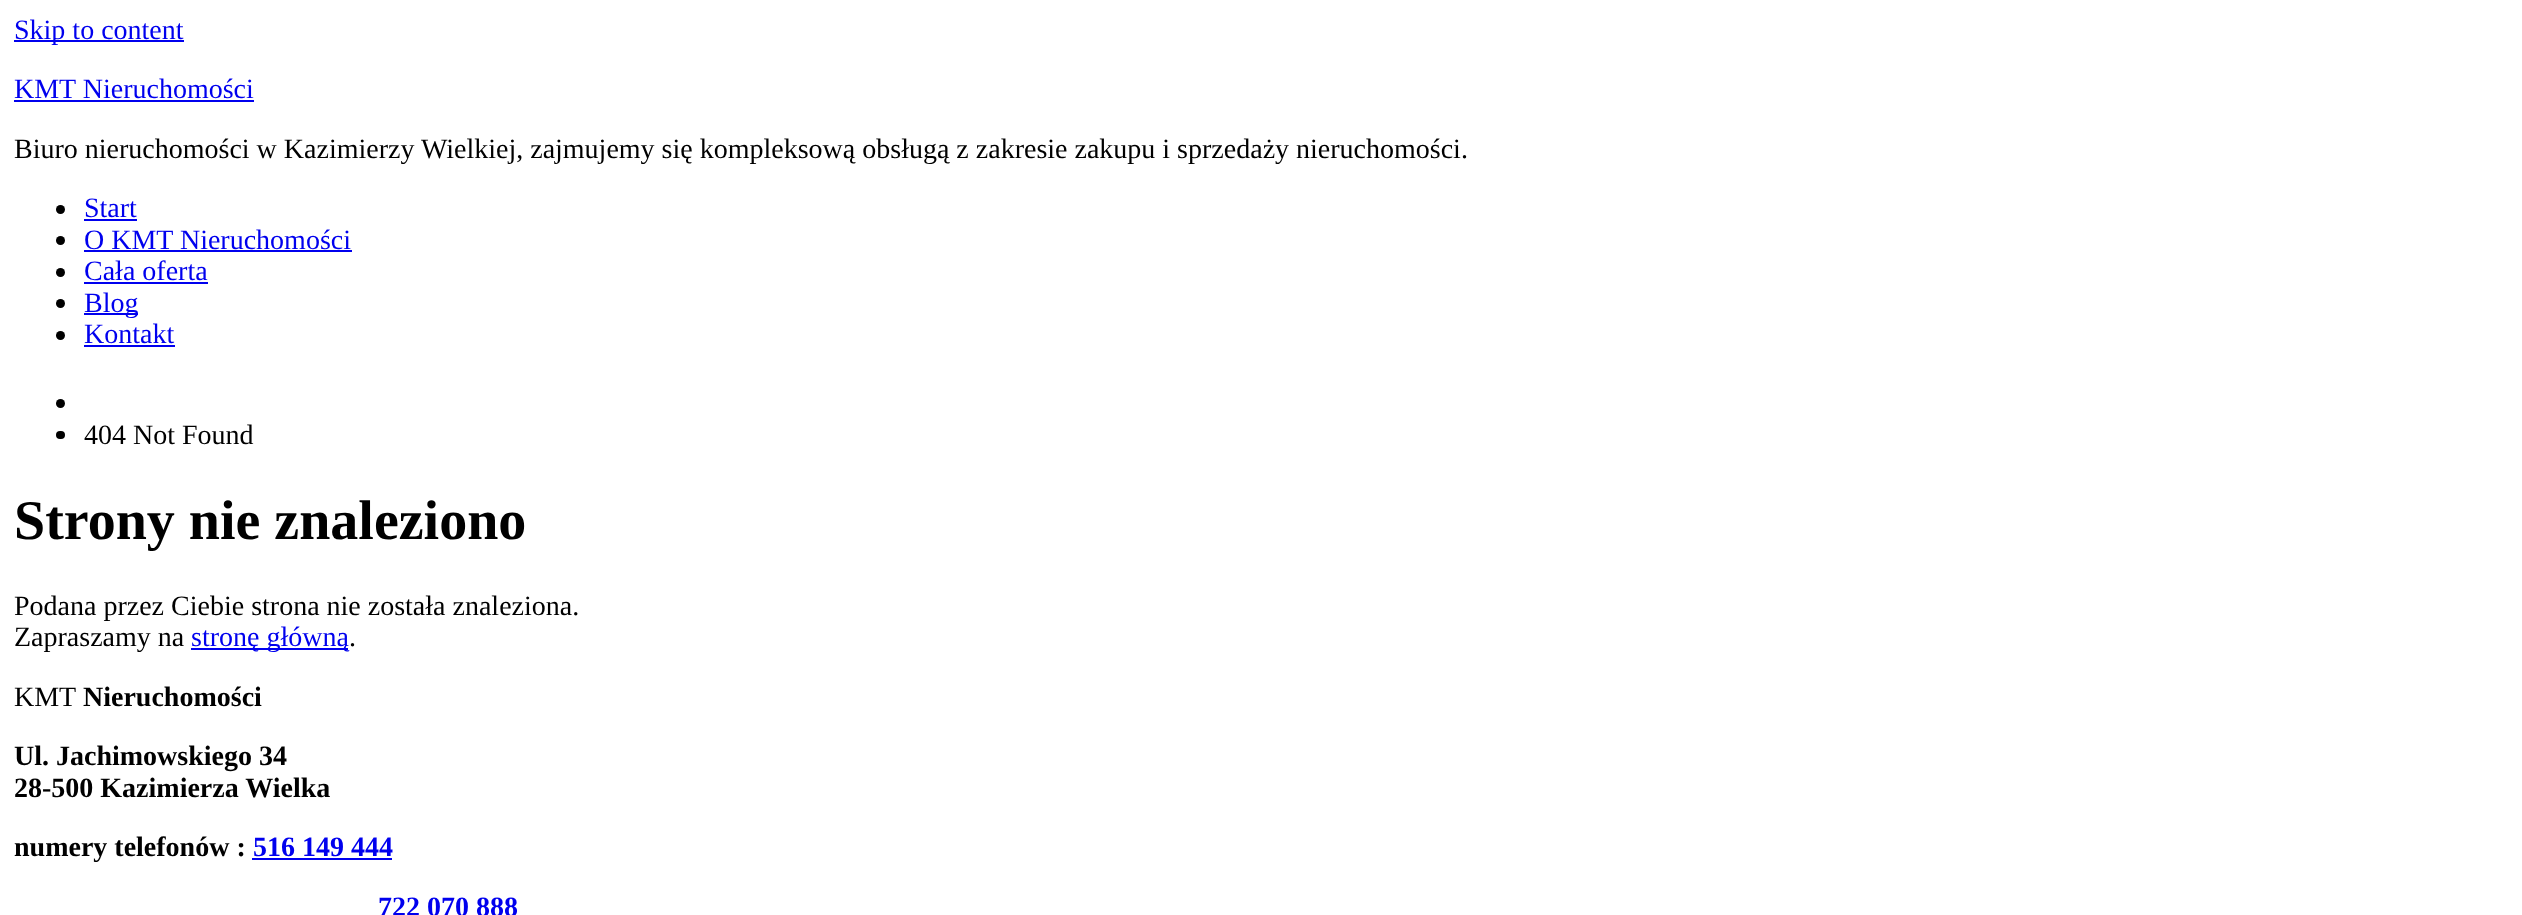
(async () => {
    const canvas = document.querySelector("canvas");
    canvas.width = 2522;
    canvas.height = 915;
    const context = canvas.getContext("2d");
    context.miterLimit = 4;
    context.fontKerning = "normal";
    function write(s, x, y, font, color) {
        context.font = font;
        context.fillStyle = color;
        context.fillText(s, x, y);
    }
    function block(x, y, w, h, color) {
        context.fillStyle = color;
        context.fillRect(x, y, w, h);
    }
    function card(x, y, w, h, r, color) {
        context.fillStyle = color;
        context.beginPath();
        context.roundRect(x, y, w, h, r);
        context.fill();
    }

    block(0, 0, 2522, 915, "rgb(255, 255, 255)");
    block(14, 40, 170, 2, "rgb(0, 0, 238)");
    write("Skip to content", 14, 39, "28px Liberation Serif", "rgb(0, 0, 238)");
    write("KMT Nieruchomości", 14, 98, "28px Liberation Serif", "rgb(0, 0, 238)");
    block(14, 100, 240, 2, "rgb(0, 0, 238)");
    write("Biuro nieruchomości w Kazimierzy Wielkiej, zajmujemy się kompleksową obsługą z zakresie zakupu i sprzedaży nieruchomości.", 14, 158, "28px Liberation Serif", "rgb(0, 0, 0)");
    context.beginPath();
    context.arc(60.5, 209.5, 4.5, 0, Math.PI * 2);
    context.fill();
    write("Start", 84, 217, "28px Liberation Serif", "rgb(0, 0, 238)");
    block(84, 219, 53, 2, "rgb(0, 0, 238)");
    context.fillStyle = "rgb(0, 0, 0)";
    context.beginPath();
    context.arc(60.5, 240.5, 4.5, 0, Math.PI * 2);
    context.fill();
    write("O KMT Nieruchomości", 84, 249, "28px Liberation Serif", "rgb(0, 0, 238)");
    block(84, 250, 268, 2, "rgb(0, 0, 238)");
    context.fillStyle = "rgb(0, 0, 0)";
    context.beginPath();
    context.arc(60.5, 272.5, 4.5, 0, Math.PI * 2);
    context.fill();
    write("Cała oferta", 84, 280, "28px Liberation Serif", "rgb(0, 0, 238)");
    block(84, 282, 124, 2, "rgb(0, 0, 238)");
    context.fillStyle = "rgb(0, 0, 0)";
    context.beginPath();
    context.arc(60.5, 303.5, 4.5, 0, Math.PI * 2);
    context.fill();
    block(84, 313, 54, 2, "rgb(0, 0, 238)");
    write("Blog", 84, 312, "28px Liberation Serif", "rgb(0, 0, 238)");
    context.fillStyle = "rgb(0, 0, 0)";
    context.beginPath();
    context.arc(60.5, 335.5, 4.5, 0, Math.PI * 2);
    context.fill();
    write("Kontakt", 84, 343, "28px Liberation Serif", "rgb(0, 0, 238)");
    block(84, 345, 91, 2, "rgb(0, 0, 238)");
    context.fillStyle = "rgb(0, 0, 0)";
    context.beginPath();
    context.arc(60.5, 403.5, 4.5, 0, Math.PI * 2);
    context.fill();
    card(56, 431, 9, 8, 4, "rgb(0, 0, 0)");
    write("404 Not Found", 84, 444, "28px Liberation Serif", "rgb(0, 0, 0)");
    write("Strony nie znaleziono", 14, 539, "bold 56px Liberation Serif", "rgb(0, 0, 0)");
    write("Podana przez Ciebie strona nie została znaleziona.", 14, 615, "28px Liberation Serif", "rgb(0, 0, 0)");
    write("Zapraszamy na", 14, 646, "28px Liberation Serif", "rgb(0, 0, 0)");
    block(191, 648, 157, 2, "rgb(0, 0, 238)");
    write("stronę główną", 191, 646, "28px Liberation Serif", "rgb(0, 0, 238)");
    write(".", 349, 646, "28px Liberation Serif", "rgb(0, 0, 0)");
    write("KMT", 14, 706, "28px Liberation Serif", "rgb(0, 0, 0)");
    write("Nieruchomości", 83, 706, "bold 28px Liberation Serif", "rgb(0, 0, 0)");
    write("Ul. Jachimowskiego 34", 14, 765, "bold 28px Liberation Serif", "rgb(0, 0, 0)");
    write("28-500 Kazimierza Wielka", 14, 797, "bold 28px Liberation Serif", "rgb(0, 0, 0)");
    write("numery telefonów :", 14, 856, "bold 28px Liberation Serif", "rgb(0, 0, 0)");
    write("516 149 444", 253, 856, "bold 28px Liberation Serif", "rgb(0, 0, 238)");
    block(252, 858, 140, 2, "rgb(0, 0, 238)");
    write("722 070 888", 378, 916, "bold 28px Liberation Serif", "rgb(0, 0, 238)");
})();
